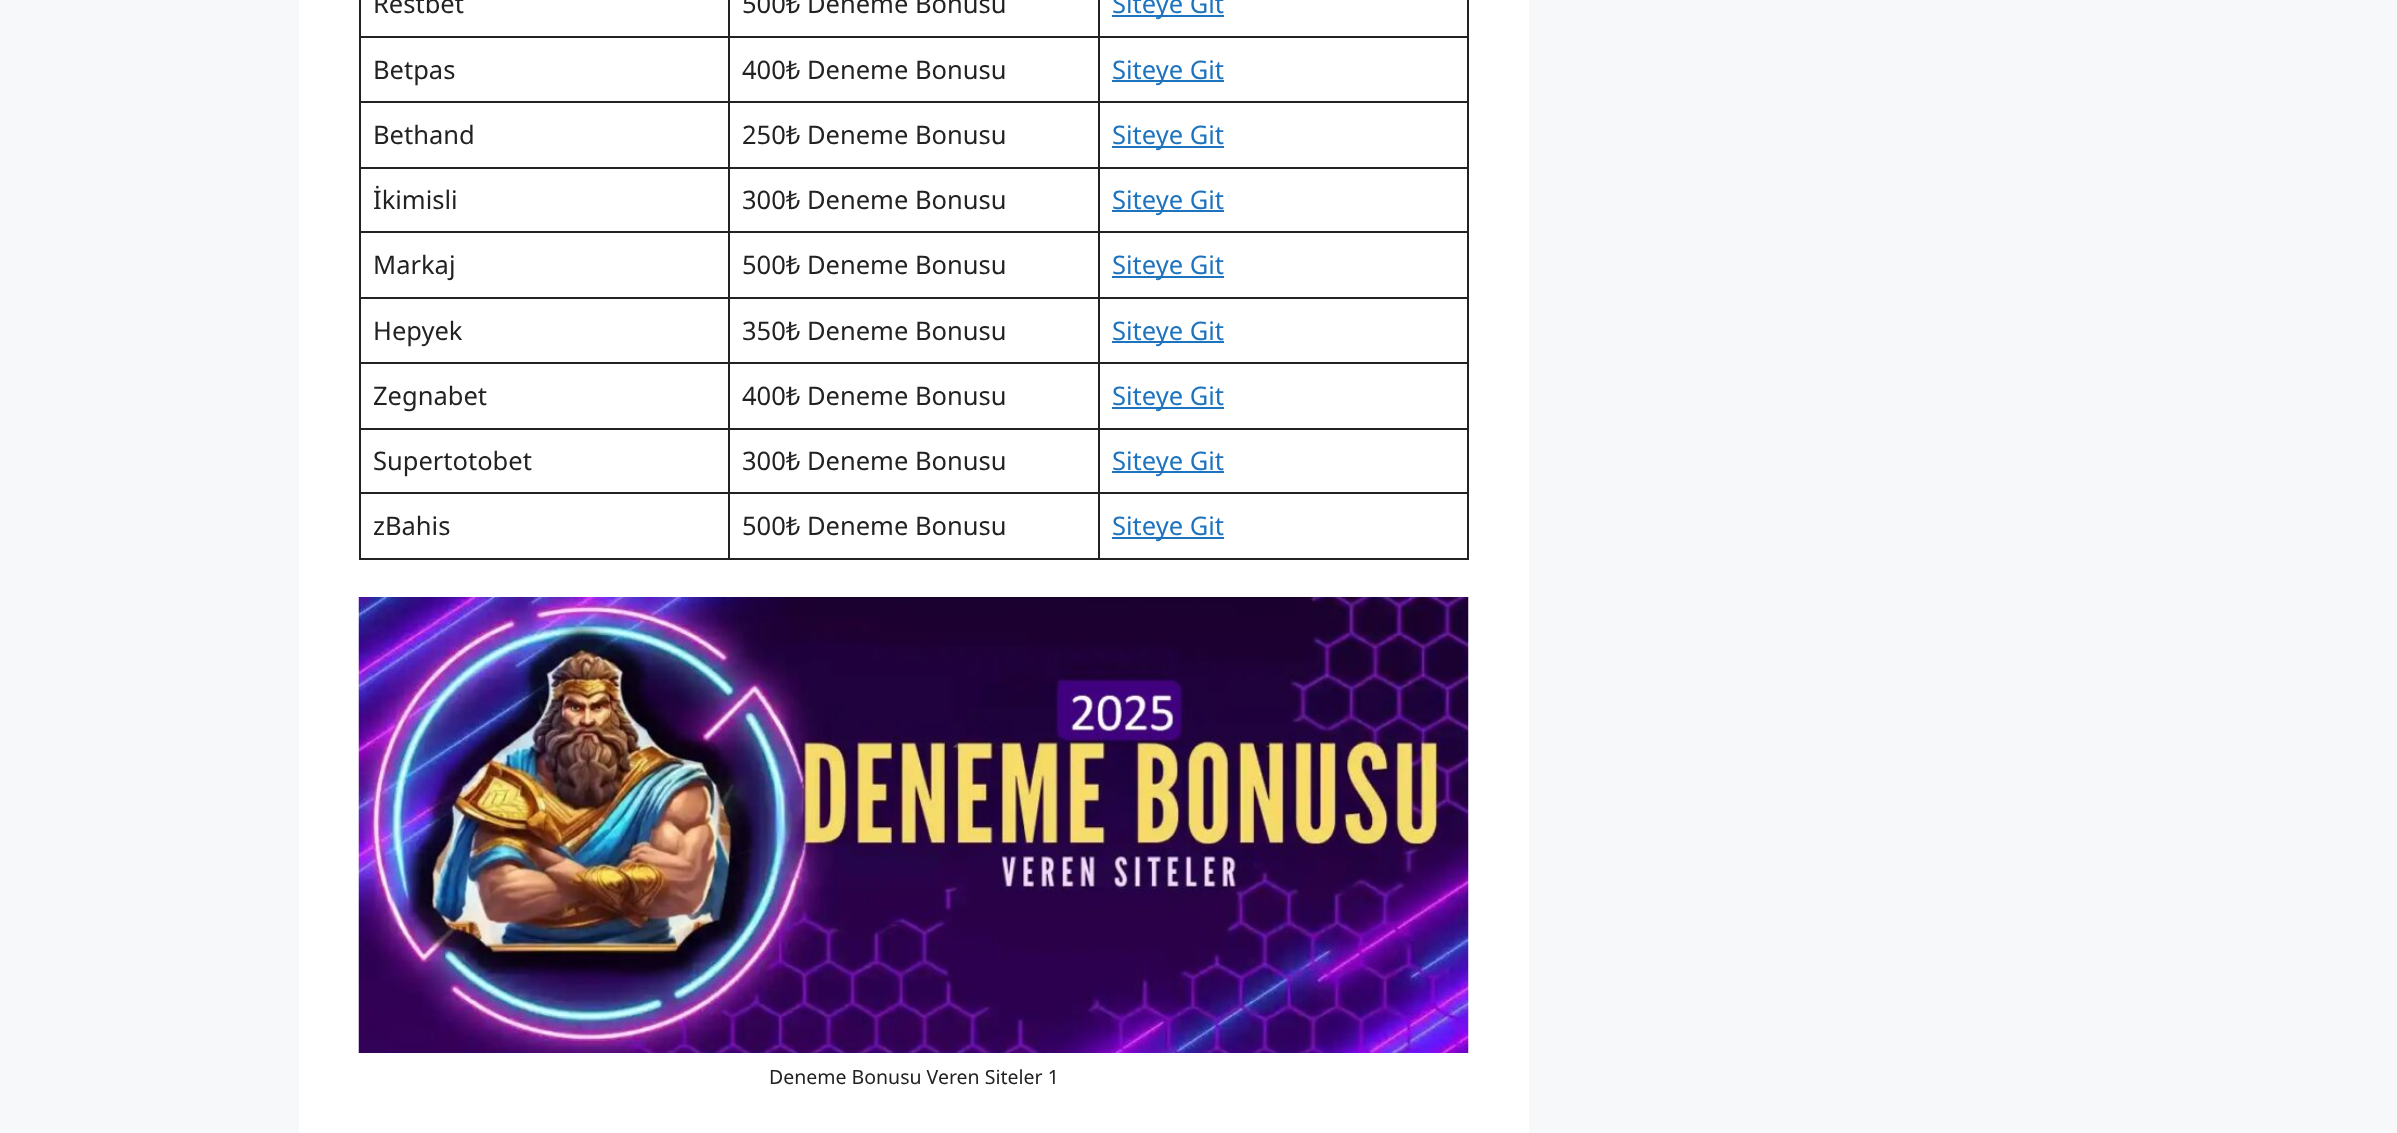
(async () => {
    const canvas = document.querySelector("canvas");
    canvas.width = 2397;
    canvas.height = 1133;
    const context = canvas.getContext("2d");
    context.miterLimit = 4;
    context.fontKerning = "normal";
    function write(s, x, y, font, color) {
        context.font = font;
        context.fillStyle = color;
        context.fillText(s, x, y);
    }
    function block(x, y, w, h, color) {
        context.fillStyle = color;
        context.fillRect(x, y, w, h);
    }
    async function photo(src, x, y, w, h) {
        const img = new Image();
        img.src = src;
        await img.decode();
        context.drawImage(img, x, y, w, h);
    }

    block(0, 0, 2397, 1133, "rgb(247, 248, 249)");
    block(299, 0, 1230, 1133, "rgb(255, 255, 255)");
    write("Restbet", 373, 13, "25.5px Noto Sans", "rgb(34, 34, 34)");
    block(1098, 36, 371, 2, "rgb(34, 34, 34)");
    block(1098, 101, 371, 2, "rgb(34, 34, 34)");
    block(1098, 167, 371, 2, "rgb(34, 34, 34)");
    block(1098, 231, 371, 2, "rgb(34, 34, 34)");
    block(1098, 297, 371, 2, "rgb(34, 34, 34)");
    block(1098, 362, 371, 2, "rgb(34, 34, 34)");
    block(1098, 428, 371, 2, "rgb(34, 34, 34)");
    block(1098, 492, 371, 2, "rgb(34, 34, 34)");
    block(1467, 492, 2, 68, "rgb(34, 34, 34)");
    block(1098, 558, 371, 2, "rgb(34, 34, 34)");
    block(1098, 492, 2, 68, "rgb(34, 34, 34)");
    block(728, 492, 372, 2, "rgb(34, 34, 34)");
    block(1098, 428, 2, 66, "rgb(34, 34, 34)");
    block(728, 428, 372, 2, "rgb(34, 34, 34)");
    block(1098, 362, 2, 67, "rgb(34, 34, 34)");
    block(728, 362, 372, 2, "rgb(34, 34, 34)");
    block(1098, 297, 2, 66, "rgb(34, 34, 34)");
    block(728, 297, 372, 2, "rgb(34, 34, 34)");
    block(1098, 231, 2, 68, "rgb(34, 34, 34)");
    block(728, 231, 372, 2, "rgb(34, 34, 34)");
    block(1098, 167, 2, 66, "rgb(34, 34, 34)");
    block(728, 167, 372, 2, "rgb(34, 34, 34)");
    block(1098, 101, 2, 67, "rgb(34, 34, 34)");
    block(728, 101, 372, 2, "rgb(34, 34, 34)");
    block(1098, 36, 2, 66, "rgb(34, 34, 34)");
    block(728, 36, 372, 2, "rgb(34, 34, 34)");
    block(728, 558, 372, 2, "rgb(34, 34, 34)");
    block(728, 492, 2, 68, "rgb(34, 34, 34)");
    block(359, 492, 370, 2, "rgb(34, 34, 34)");
    block(728, 428, 2, 66, "rgb(34, 34, 34)");
    block(359, 428, 370, 2, "rgb(34, 34, 34)");
    block(728, 362, 2, 67, "rgb(34, 34, 34)");
    block(359, 362, 370, 2, "rgb(34, 34, 34)");
    block(728, 297, 2, 66, "rgb(34, 34, 34)");
    block(359, 297, 370, 2, "rgb(34, 34, 34)");
    block(728, 231, 2, 68, "rgb(34, 34, 34)");
    block(359, 231, 370, 2, "rgb(34, 34, 34)");
    block(728, 167, 2, 66, "rgb(34, 34, 34)");
    block(359, 167, 370, 2, "rgb(34, 34, 34)");
    block(728, 101, 2, 67, "rgb(34, 34, 34)");
    block(359, 101, 370, 2, "rgb(34, 34, 34)");
    block(728, 36, 2, 66, "rgb(34, 34, 34)");
    block(359, 36, 370, 2, "rgb(34, 34, 34)");
    block(728, 0, 2, 38, "rgb(34, 34, 34)");
    write("500₺ Deneme Bonusu", 742, 13, "25.5px Noto Sans", "rgb(34, 34, 34)");
    block(1098, 0, 2, 38, "rgb(34, 34, 34)");
    block(1112, 15, 112, 2, "rgb(30, 115, 190)");
    write("Siteye Git", 1112, 13, "25.5px Noto Sans", "rgb(30, 115, 190)");
    block(359, 558, 370, 2, "rgb(34, 34, 34)");
    block(359, 492, 2, 68, "rgb(34, 34, 34)");
    block(359, 428, 2, 66, "rgb(34, 34, 34)");
    block(359, 362, 2, 67, "rgb(34, 34, 34)");
    block(359, 297, 2, 66, "rgb(34, 34, 34)");
    block(359, 231, 2, 68, "rgb(34, 34, 34)");
    block(359, 167, 2, 66, "rgb(34, 34, 34)");
    block(359, 101, 2, 67, "rgb(34, 34, 34)");
    block(359, 0, 2, 102, "rgb(34, 34, 34)");
    write("Betpas", 373, 79, "25.5px Noto Sans", "rgb(34, 34, 34)");
    write("400₺ Deneme Bonusu", 742, 79, "25.5px Noto Sans", "rgb(34, 34, 34)");
    block(1467, 428, 2, 66, "rgb(34, 34, 34)");
    block(1467, 362, 2, 67, "rgb(34, 34, 34)");
    block(1467, 297, 2, 66, "rgb(34, 34, 34)");
    block(1467, 231, 2, 68, "rgb(34, 34, 34)");
    block(1467, 167, 2, 66, "rgb(34, 34, 34)");
    block(1467, 101, 2, 67, "rgb(34, 34, 34)");
    block(1467, 0, 2, 102, "rgb(34, 34, 34)");
    block(1112, 80, 112, 2, "rgb(30, 115, 190)");
    write("Siteye Git", 1112, 79, "25.5px Noto Sans", "rgb(30, 115, 190)");
    write("Bethand", 373, 144, "25.5px Noto Sans", "rgb(34, 34, 34)");
    write("250₺ Deneme Bonusu", 742, 144, "25.5px Noto Sans", "rgb(34, 34, 34)");
    block(1112, 146, 112, 2, "rgb(30, 115, 190)");
    write("Siteye Git", 1112, 144, "25.5px Noto Sans", "rgb(30, 115, 190)");
    write("İkimisli", 373, 209, "25.5px Noto Sans", "rgb(34, 34, 34)");
    write("300₺ Deneme Bonusu", 742, 209, "25.5px Noto Sans", "rgb(34, 34, 34)");
    block(1112, 210, 112, 2, "rgb(30, 115, 190)");
    write("Siteye Git", 1112, 209, "25.5px Noto Sans", "rgb(30, 115, 190)");
    write("Markaj", 373, 274, "25.5px Noto Sans", "rgb(34, 34, 34)");
    write("500₺ Deneme Bonusu", 742, 274, "25.5px Noto Sans", "rgb(34, 34, 34)");
    block(1112, 276, 112, 2, "rgb(30, 115, 190)");
    write("Siteye Git", 1112, 274, "25.5px Noto Sans", "rgb(30, 115, 190)");
    write("Hepyek", 373, 340, "25.5px Noto Sans", "rgb(34, 34, 34)");
    write("350₺ Deneme Bonusu", 742, 340, "25.5px Noto Sans", "rgb(34, 34, 34)");
    block(1112, 341, 112, 2, "rgb(30, 115, 190)");
    write("Siteye Git", 1112, 340, "25.5px Noto Sans", "rgb(30, 115, 190)");
    write("Zegnabet", 373, 405, "25.5px Noto Sans", "rgb(34, 34, 34)");
    write("400₺ Deneme Bonusu", 742, 405, "25.5px Noto Sans", "rgb(34, 34, 34)");
    block(1112, 407, 112, 2, "rgb(30, 115, 190)");
    write("Siteye Git", 1112, 405, "25.5px Noto Sans", "rgb(30, 115, 190)");
    write("Supertotobet", 373, 470, "25.5px Noto Sans", "rgb(34, 34, 34)");
    write("300₺ Deneme Bonusu", 742, 470, "25.5px Noto Sans", "rgb(34, 34, 34)");
    block(1112, 471, 112, 2, "rgb(30, 115, 190)");
    write("Siteye Git", 1112, 470, "25.5px Noto Sans", "rgb(30, 115, 190)");
    write("zBahis", 373, 535, "25.5px Noto Sans", "rgb(34, 34, 34)");
    write("500₺ Deneme Bonusu", 742, 535, "25.5px Noto Sans", "rgb(34, 34, 34)");
    block(1112, 537, 112, 2, "rgb(30, 115, 190)");
    write("Siteye Git", 1112, 535, "25.5px Noto Sans", "rgb(30, 115, 190)");
    await photo("media/1.png", 358, 597, 1111, 456);
    write("Deneme Bonusu Veren Siteler 1", 769, 1084, "19.5px Noto Sans", "rgb(34, 34, 34)");
})();
